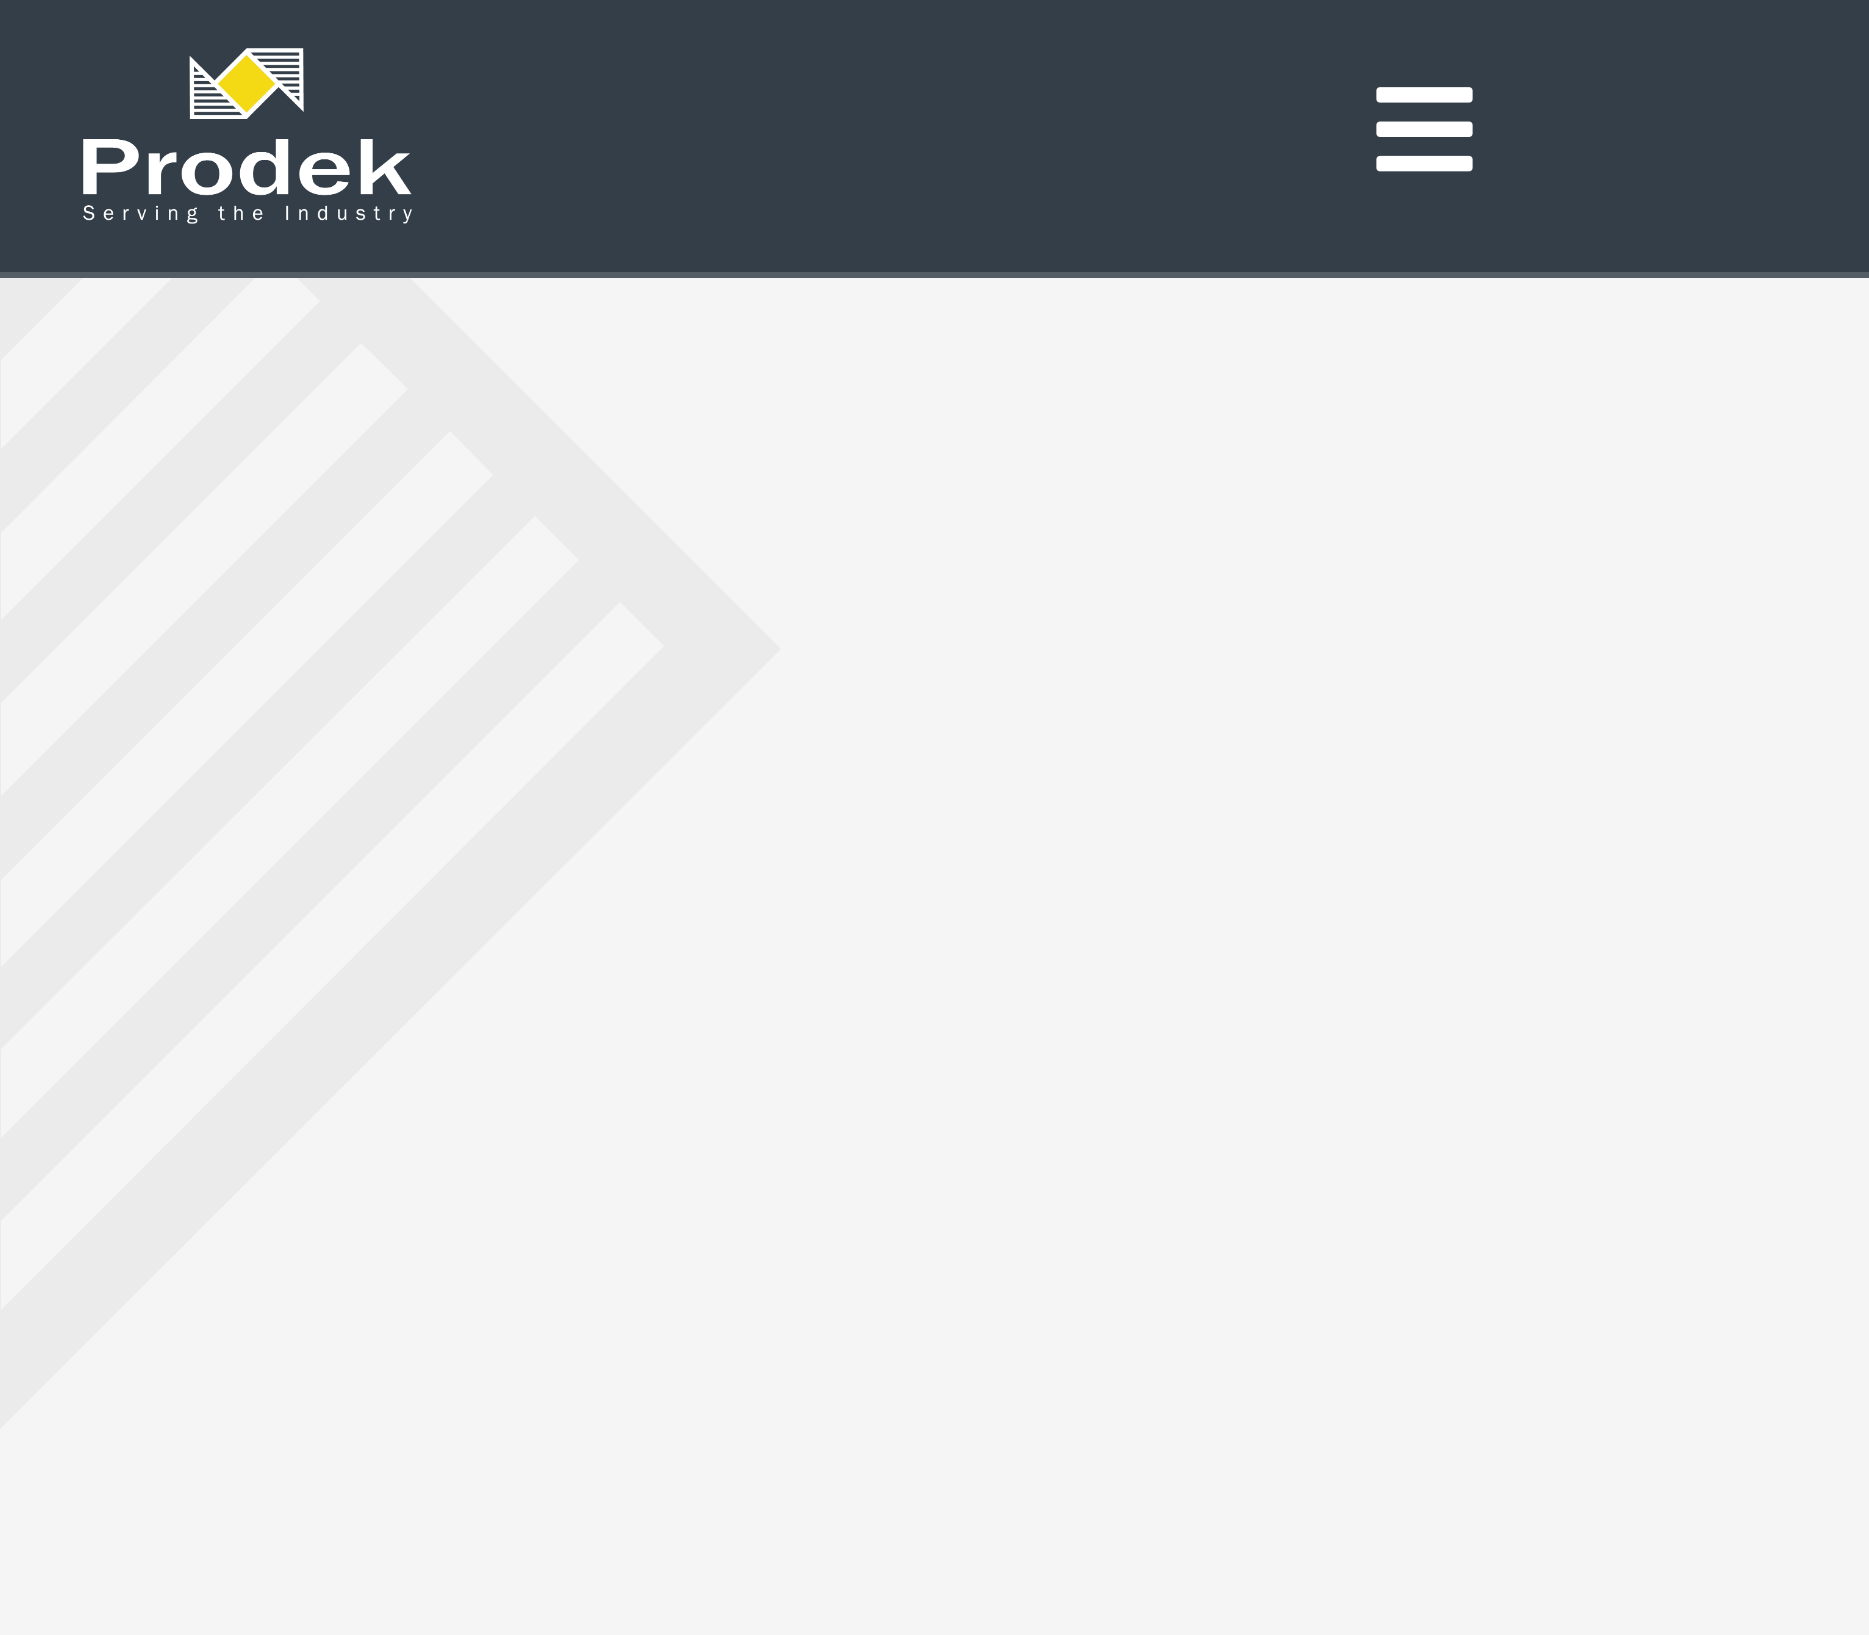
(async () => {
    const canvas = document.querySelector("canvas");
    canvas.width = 1869;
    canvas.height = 1635;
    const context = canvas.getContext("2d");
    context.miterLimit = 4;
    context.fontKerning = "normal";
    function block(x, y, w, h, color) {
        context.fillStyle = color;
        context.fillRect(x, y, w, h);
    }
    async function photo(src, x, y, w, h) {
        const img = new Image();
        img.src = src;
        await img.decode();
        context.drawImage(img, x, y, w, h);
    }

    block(0, 0, 1869, 1635, "rgb(245, 245, 245)");
    block(0, 0, 1869, 272, "rgb(51, 62, 72)");
    block(0, 272, 1869, 6, "rgb(84, 93, 101)");
    await photo("media/1.png", 83, 48, 329, 176);
    await photo("media/2.png", 1376, 87, 97, 85);
    context.save();
    context.beginPath();
    context.rect(0, 278, 919, 1193);
    context.clip();
    context.fillStyle = "rgb(235, 235, 235)";
    context.beginPath();
    context.moveTo(-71, 1500);
    context.lineTo(4, 1425);
    context.lineTo(781, 649);
    context.lineTo(-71, -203);
    context.closePath();
    context.moveTo(62, 43);
    context.lineTo(0, 105);
    context.lineTo(-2, -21);
    context.closePath();
    context.moveTo(148, 129);
    context.lineTo(1, 277);
    context.lineTo(1, 189);
    context.lineTo(104, 85);
    context.closePath();
    context.moveTo(234, 216);
    context.lineTo(1, 449);
    context.lineTo(1, 360);
    context.lineTo(190, 171);
    context.closePath();
    context.moveTo(320, 301);
    context.lineTo(1, 620);
    context.lineTo(1, 533);
    context.lineTo(276, 257);
    context.closePath();
    context.moveTo(408, 389);
    context.lineTo(1, 796);
    context.lineTo(1, 703);
    context.lineTo(361, 343);
    context.closePath();
    context.moveTo(493, 475);
    context.lineTo(1, 967);
    context.lineTo(1, 880);
    context.lineTo(450, 431);
    context.closePath();
    context.moveTo(579, 560);
    context.lineTo(1, 1138);
    context.lineTo(1, 1049);
    context.lineTo(535, 516);
    context.closePath();
    context.moveTo(1, 1310);
    context.lineTo(1, 1221);
    context.lineTo(620, 602);
    context.lineTo(664, 646);
    context.closePath();
    context.fill();
    context.restore();
})();
